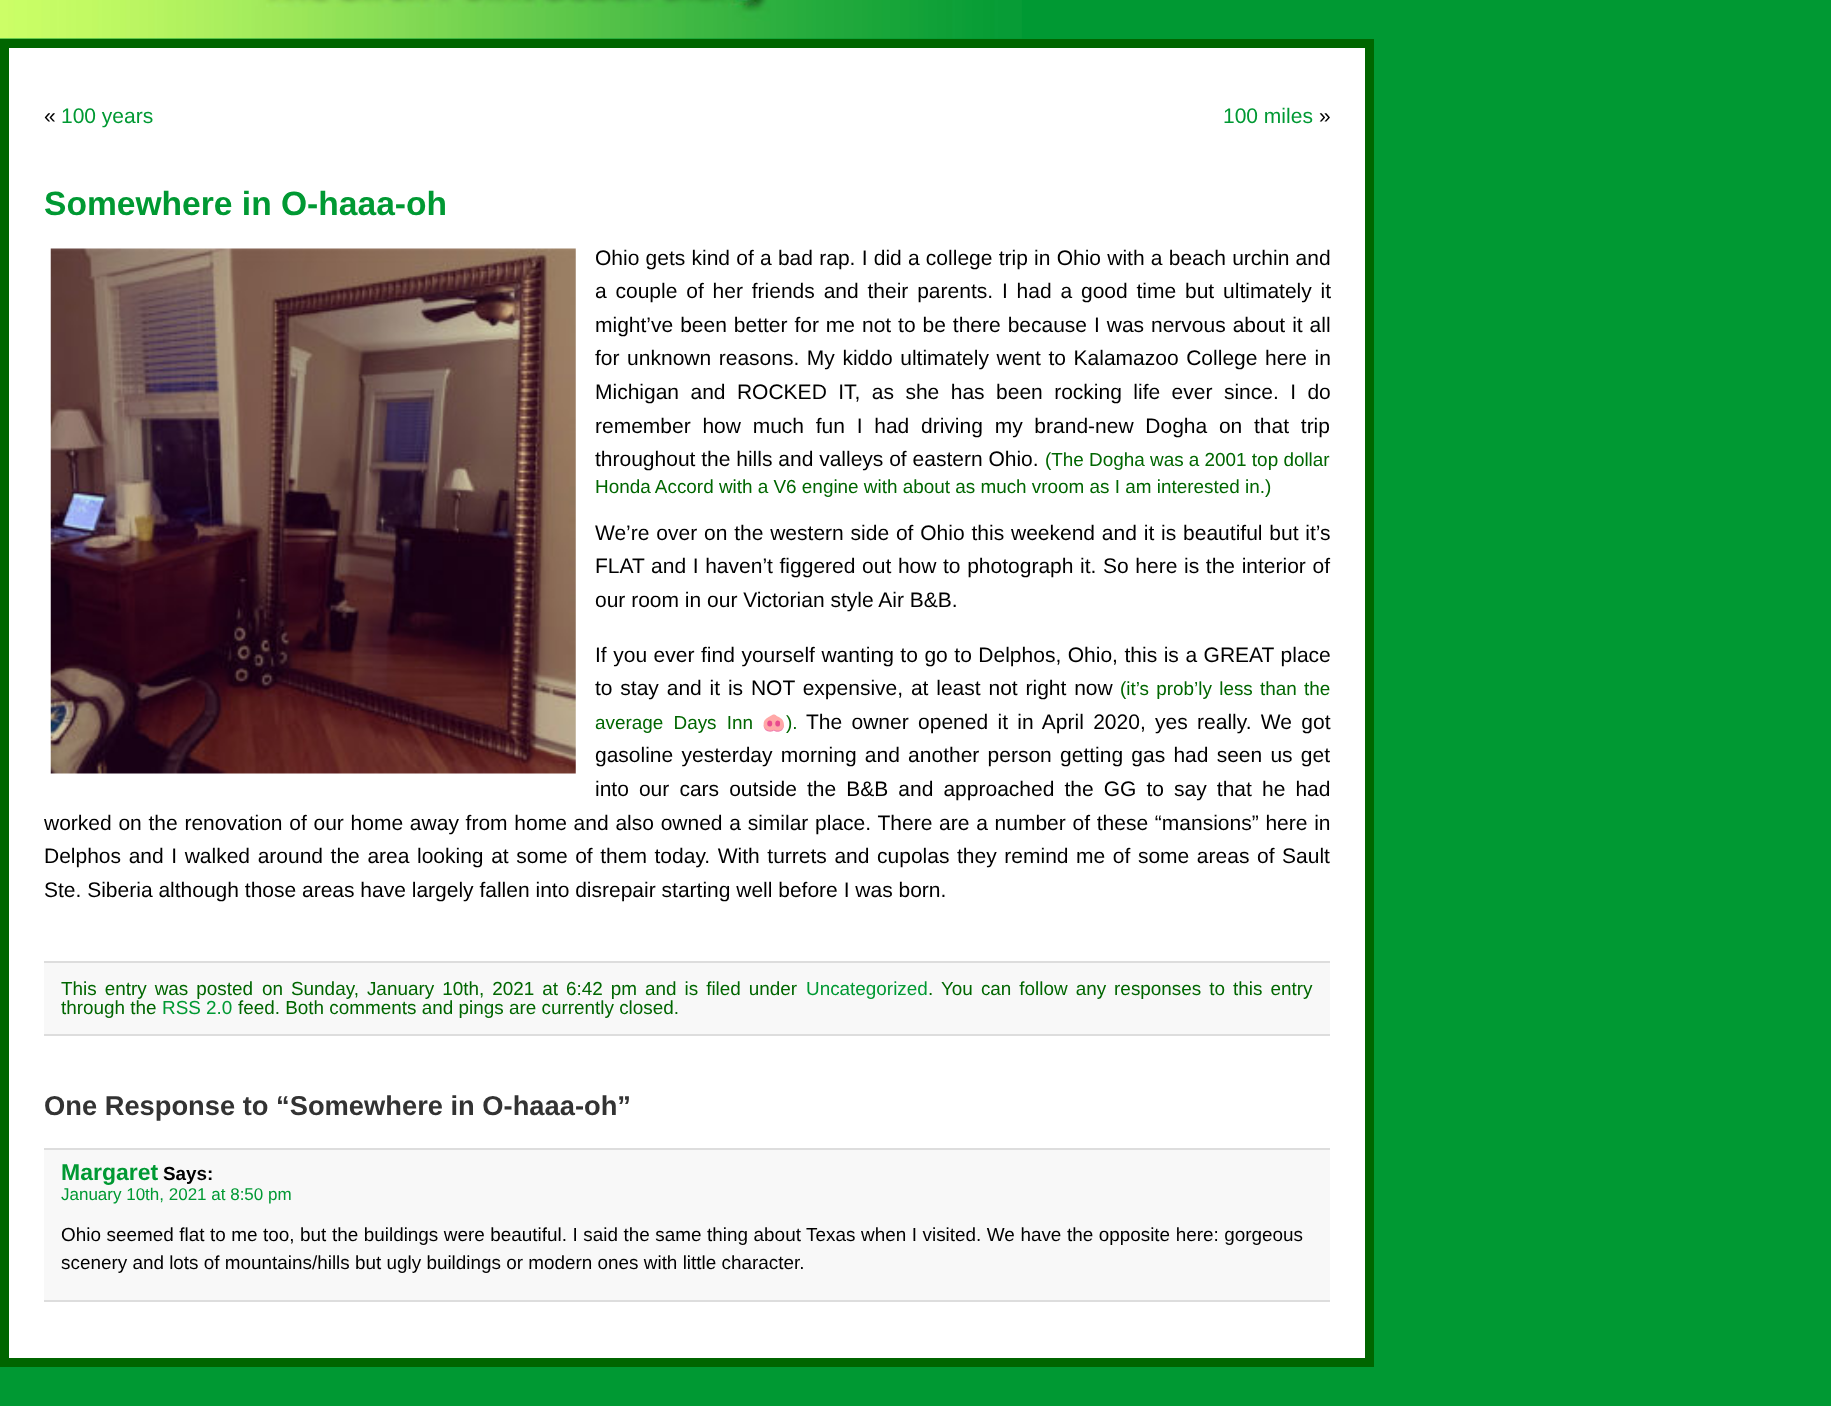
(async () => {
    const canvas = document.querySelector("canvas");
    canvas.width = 1831;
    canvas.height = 1406;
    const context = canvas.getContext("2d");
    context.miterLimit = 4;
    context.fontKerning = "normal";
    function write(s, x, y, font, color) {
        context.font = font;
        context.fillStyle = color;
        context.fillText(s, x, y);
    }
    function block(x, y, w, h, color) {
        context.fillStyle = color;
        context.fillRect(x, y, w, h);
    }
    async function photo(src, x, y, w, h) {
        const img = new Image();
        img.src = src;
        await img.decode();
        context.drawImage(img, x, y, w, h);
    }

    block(0, 0, 1831, 1406, "rgb(0, 153, 51)");
    await photo("media/1.png", 0, 0, 1022, 39);
    context.fillStyle = "rgb(255, 255, 255)";
    context.beginPath();
    context.rect(4.5, 43.5, 1365, 1319);
    context.fill();
    context.strokeStyle = "rgb(0, 102, 0)";
    context.lineWidth = 9;
    context.stroke();
    write("«", 44, 123, "21px Liberation Sans", "rgb(0, 0, 0)");
    write("100 years", 61, 123, "21px Liberation Sans", "rgb(0, 153, 51)");
    write("100 miles", 1223, 123, "21px Liberation Sans", "rgb(0, 153, 51)");
    write("»", 1319, 123, "21px Liberation Sans", "rgb(0, 0, 0)");
    write("Somewhere in O-haaa-oh", 44, 215, "bold 33.6px Liberation Sans", "rgb(0, 153, 51)");
    await photo("media/2.png", 50, 248, 526, 526);
    context.wordSpacing = "0.4px";
    write("Ohio gets kind of a bad rap. I did a college trip in Ohio with a beach urchin and", 595, 265, "21px Liberation Sans", "rgb(0, 0, 0)");
    context.wordSpacing = "3px";
    write("a couple of her friends and their parents. I had a good time but ultimately it", 595, 298, "21px Liberation Sans", "rgb(0, 0, 0)");
    context.wordSpacing = "1.1px";
    write("might’ve been better for me not to be there because I was nervous about it all", 595, 332, "21px Liberation Sans", "rgb(0, 0, 0)");
    context.wordSpacing = "1.75px";
    write("for unknown reasons. My kiddo ultimately went to Kalamazoo College here in", 595, 365, "21px Liberation Sans", "rgb(0, 0, 0)");
    context.wordSpacing = "5.6px";
    write("Michigan and ROCKED IT, as she has been rocking life ever since. I do", 595, 399, "21px Liberation Sans", "rgb(0, 0, 0)");
    context.wordSpacing = "5.9px";
    write("remember how much fun I had driving my brand-new Dogha on that trip", 595, 433, "21px Liberation Sans", "rgb(0, 0, 0)");
    context.wordSpacing = "0px";
    write("throughout the hills and valleys of eastern Ohio.", 595, 466, "21px Liberation Sans", "rgb(0, 0, 0)");
    write("(The Dogha was a 2001 top dollar", 1045, 466, "18.9px Liberation Sans", "rgb(0, 102, 0)");
    write("Honda Accord with a V6 engine with about as much vroom as I am interested in.)", 595, 493, "18.9px Liberation Sans", "rgb(0, 102, 0)");
    context.wordSpacing = "1px";
    write("We’re over on the western side of Ohio this weekend and it is beautiful but it’s", 595, 540, "21px Liberation Sans", "rgb(0, 0, 0)");
    context.wordSpacing = "0.8px";
    write("FLAT and I haven’t figgered out how to photograph it. So here is the interior of", 595, 573, "21px Liberation Sans", "rgb(0, 0, 0)");
    context.wordSpacing = "0px";
    write("our room in our Victorian style Air B&B.", 595, 607, "21px Liberation Sans", "rgb(0, 0, 0)");
    context.wordSpacing = "0.7px";
    write("If you ever find yourself wanting to go to Delphos, Ohio, this is a GREAT place", 595, 662, "21px Liberation Sans", "rgb(0, 0, 0)");
    context.wordSpacing = "2px";
    write("to stay and it is NOT expensive, at least not right now", 595, 695, "21px Liberation Sans", "rgb(0, 0, 0)");
    write("(it’s prob’ly less than the", 1120, 695, "18.9px Liberation Sans", "rgb(0, 102, 0)");
    context.wordSpacing = "5px";
    write("average Days Inn", 595, 729, "18.9px Liberation Sans", "rgb(0, 102, 0)");
    context.wordSpacing = "0px";
    write("🐽", 762, 729, "18.9px Noto Color Emoji", "rgb(0, 102, 0)");
    write(").", 786, 729, "18.9px Liberation Sans", "rgb(0, 102, 0)");
    context.wordSpacing = "3.5px";
    write("The owner opened it in April 2020, yes really. We got", 806, 729, "21px Liberation Sans", "rgb(0, 0, 0)");
    context.wordSpacing = "2.4px";
    write("gasoline yesterday morning and another person getting gas had seen us get", 595, 762, "21px Liberation Sans", "rgb(0, 0, 0)");
    context.wordSpacing = "4.25px";
    write("into our cars outside the B&B and approached the GG to say that he had", 595, 796, "21px Liberation Sans", "rgb(0, 0, 0)");
    context.wordSpacing = "0.9px";
    write("worked on the renovation of our home away from home and also owned a similar place. There are a number of these “mansions” here in", 44, 830, "21px Liberation Sans", "rgb(0, 0, 0)");
    context.wordSpacing = "1.75px";
    write("Delphos and I walked around the area looking at some of them today. With turrets and cupolas they remind me of some areas of Sault", 44, 863, "21px Liberation Sans", "rgb(0, 0, 0)");
    context.wordSpacing = "0px";
    write("Ste. Siberia although those areas have largely fallen into disrepair starting well before I was born.", 44, 897, "21px Liberation Sans", "rgb(0, 0, 0)");
    block(44, 963, 1286, 71, "rgb(248, 248, 248)");
    block(44, 961, 1286, 2, "rgb(221, 221, 221)");
    block(44, 1034, 1286, 2, "rgb(221, 221, 221)");
    context.wordSpacing = "2.75px";
    write("This entry was posted", 61, 995, "18.9px Liberation Sans", "rgb(0, 102, 0)");
    write("on Sunday, January 10th, 2021 at 6:42 pm", 262, 995, "18.9px Liberation Sans", "rgb(0, 102, 0)");
    write("and is filed under", 645, 995, "18.9px Liberation Sans", "rgb(0, 102, 0)");
    context.wordSpacing = "0px";
    write("Uncategorized", 806, 995, "18.9px Liberation Sans", "rgb(0, 153, 51)");
    write(".", 928, 995, "18.9px Liberation Sans", "rgb(0, 102, 0)");
    context.wordSpacing = "2.75px";
    write("You can follow any responses to this entry", 941, 995, "18.9px Liberation Sans", "rgb(0, 102, 0)");
    context.wordSpacing = "0px";
    write("through the", 61, 1014, "18.9px Liberation Sans", "rgb(0, 102, 0)");
    write("RSS 2.0", 162, 1014, "18.9px Liberation Sans", "rgb(0, 153, 51)");
    write("feed. Both comments and pings are currently closed.", 238, 1014, "18.9px Liberation Sans", "rgb(0, 102, 0)");
    write("One Response to “Somewhere in O-haaa-oh”", 44, 1115, "bold 27.3px Liberation Sans", "rgb(51, 51, 51)");
    block(44, 1150, 1286, 150, "rgb(248, 248, 248)");
    block(44, 1148, 1286, 2, "rgb(221, 221, 221)");
    block(44, 1300, 1286, 2, "rgb(221, 221, 221)");
    write("Margaret", 61, 1180, "bold 23px Liberation Sans", "rgb(0, 153, 51)");
    write("Says:", 163, 1180, "bold 18.9px Liberation Sans", "rgb(0, 0, 0)");
    write("January 10th, 2021 at 8:50 pm", 61, 1200, "17px Liberation Sans", "rgb(0, 153, 51)");
    context.wordSpacing = "0.3px";
    write("Ohio seemed flat to me too, but the buildings were beautiful. I said the same thing about Texas when I visited. We have the opposite here: gorgeous", 61, 1241, "18.9px Liberation Sans", "rgb(0, 0, 0)");
    context.wordSpacing = "0px";
    write("scenery and lots of mountains/hills but ugly buildings or modern ones with little character.", 61, 1269, "18.9px Liberation Sans", "rgb(0, 0, 0)");
})();
